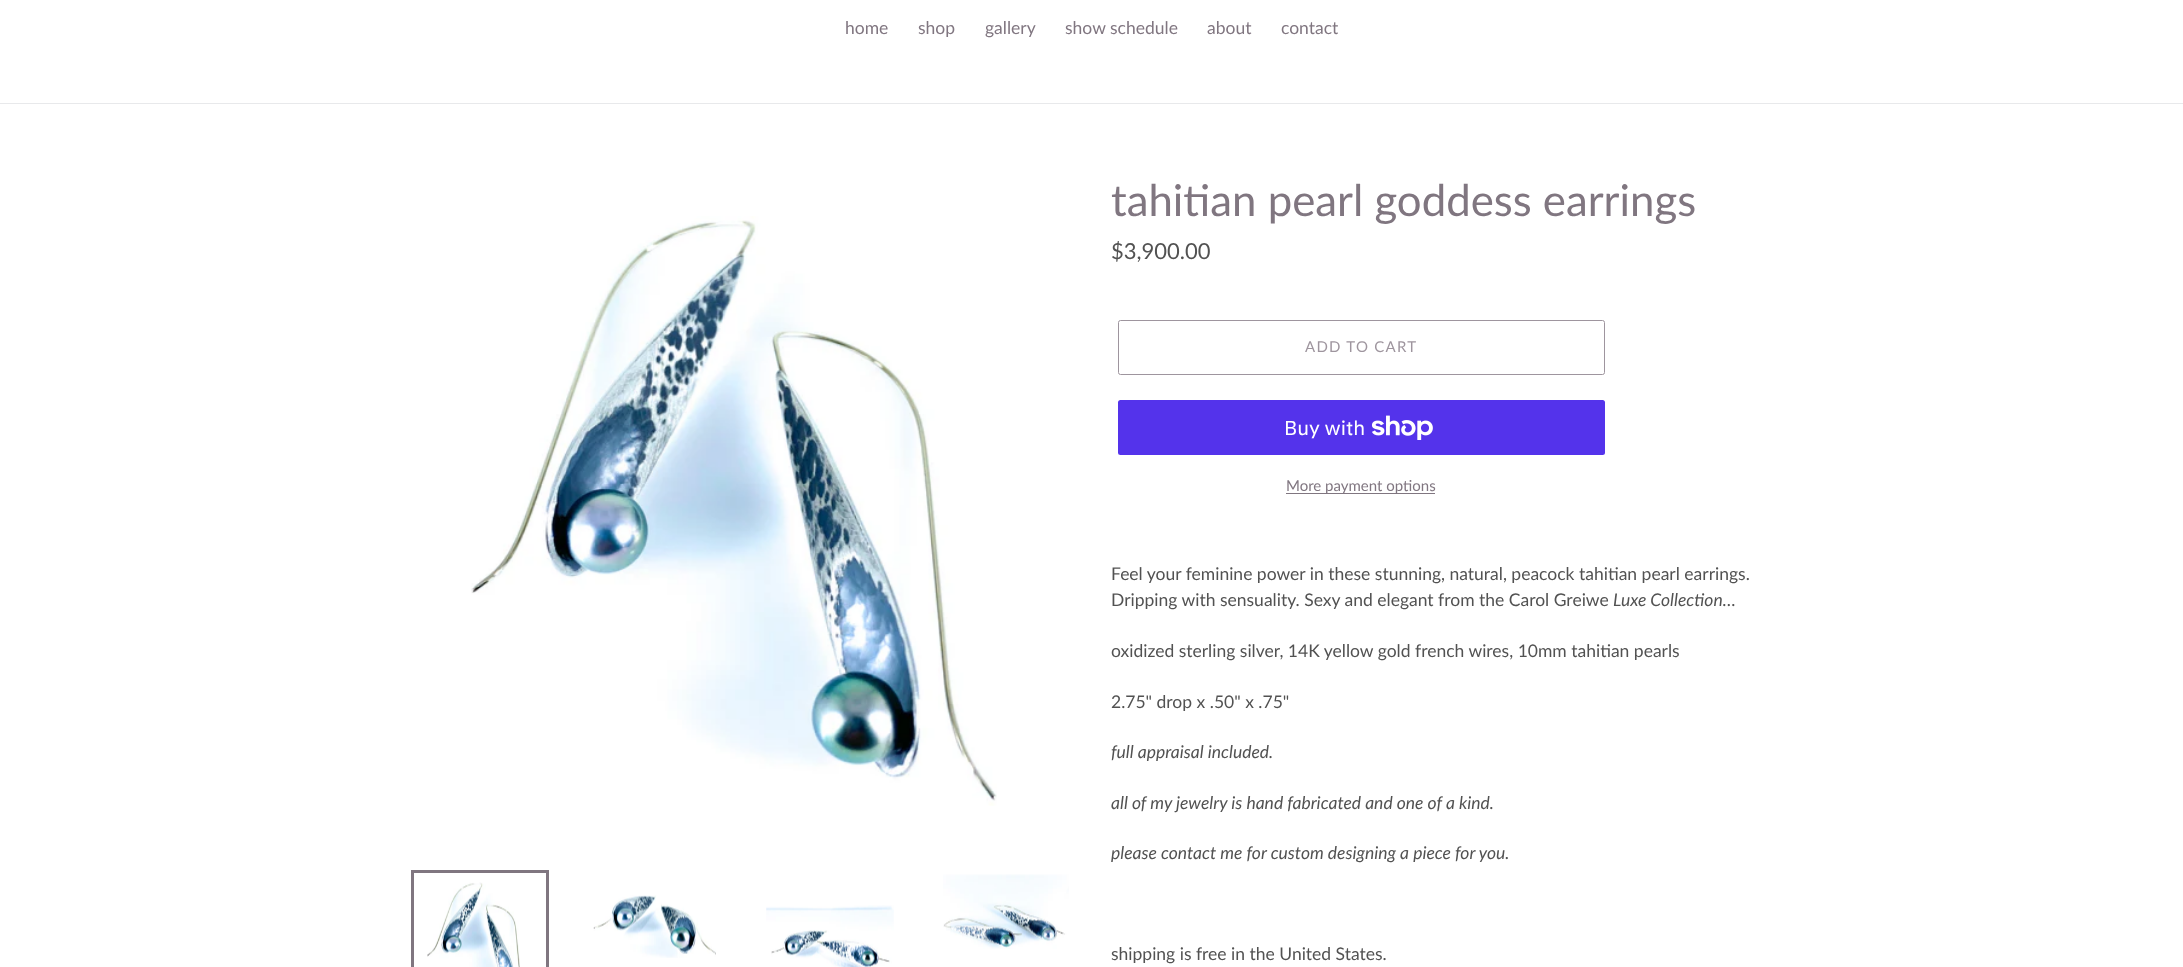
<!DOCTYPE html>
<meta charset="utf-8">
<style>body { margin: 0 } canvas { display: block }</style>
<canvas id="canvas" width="2183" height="967"></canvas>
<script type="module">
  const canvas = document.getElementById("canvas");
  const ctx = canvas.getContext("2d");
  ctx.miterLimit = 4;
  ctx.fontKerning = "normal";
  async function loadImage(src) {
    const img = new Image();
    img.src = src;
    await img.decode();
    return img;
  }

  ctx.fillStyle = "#ffffff";
  ctx.fillRect(0, 0, 2183, 967);
  ctx.fillStyle = "#e8e9eb";
  ctx.fillRect(0, 103, 2183, 1);
  ctx.font = "17.5px Lato";
  ctx.fillStyle = "#807680";
  ctx.fillText("home", 845, 34);
  ctx.fillText("shop", 918, 34);
  ctx.fillText("gallery", 985, 34);
  ctx.fillText("show schedule", 1065, 34);
  ctx.fillText("about", 1207, 34);
  ctx.fillText("contact", 1281, 34);
  ctx.drawImage(await loadImage("img1.png"), 471, 216, 526, 590);
  ctx.strokeStyle = "#807680";
  ctx.lineWidth = 3;
  ctx.strokeRect(412.5, 871.5, 135, 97);
  ctx.drawImage(await loadImage("img2.png"), 427, 882, 93, 85);
  ctx.drawImage(await loadImage("img3.png"), 593, 895, 123, 63);
  ctx.drawImage(await loadImage("img4.png"), 766, 905, 128, 62);
  ctx.drawImage(await loadImage("img5.png"), 943, 874, 126, 75);
  ctx.font = "43.75px Lato";
  ctx.fillText("tahitian pearl goddess earrings", 1111, 216);
  ctx.font = "22px Lato";
  ctx.fillStyle = "#525252";
  ctx.fillText("$3,900.00", 1111, 259);
  ctx.beginPath();
  ctx.roundRect(1118.5, 320.5, 486, 54, 2);
  ctx.strokeStyle = "#9e959e";
  ctx.lineWidth = 1;
  ctx.stroke();
  ctx.letterSpacing = "1.25px";
  ctx.font = "15px Lato";
  ctx.fillStyle = "#9e959e";
  ctx.fillText("ADD TO CART", 1305, 352);
  ctx.fillStyle = "#5433eb";
  ctx.beginPath();
  ctx.roundRect(1118, 400, 487, 55, 2.5);
  ctx.fill();
  ctx.letterSpacing = "0px";
  ctx.font = "20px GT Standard";
  ctx.fillStyle = "#ffffff";
  ctx.fillText("Buy with", 1284, 435);
  ctx.drawImage(await loadImage("img6.png"), 1371, 415, 62, 25);
  ctx.fillStyle = "#807680";
  ctx.fillRect(1286, 493, 149, 1);
  ctx.font = "15px Lato";
  ctx.fillText("More payment options", 1286, 491);
  ctx.font = "17.5px Lato";
  ctx.fillStyle = "#525252";
  ctx.fillText("Feel your feminine power in these stunning, natural, peacock tahitian pearl earrings.", 1111, 580);
  ctx.fillText("Dripping with sensuality. Sexy and elegant from the Carol Greiwe", 1111, 606);
  ctx.font = "italic 17.5px Lato";
  ctx.fillText("Luxe Collection…", 1613, 606);
  ctx.font = "17.5px Lato";
  ctx.fillText("oxidized sterling silver, 14K yellow gold french wires, 10mm tahitian pearls", 1111, 657);
  ctx.fillText("2.75\" drop x .50\" x .75\"", 1111, 708);
  ctx.font = "italic 17.5px Lato";
  ctx.fillText("full appraisal included.", 1111, 758);
  ctx.fillText("all of my jewelry is hand fabricated and one of a kind.", 1111, 809);
  ctx.fillText("please contact me for custom designing a piece for you.", 1111, 859);
  ctx.font = "17.5px Lato";
  ctx.fillText("shipping is free in the United States.", 1111, 960);
</script>
